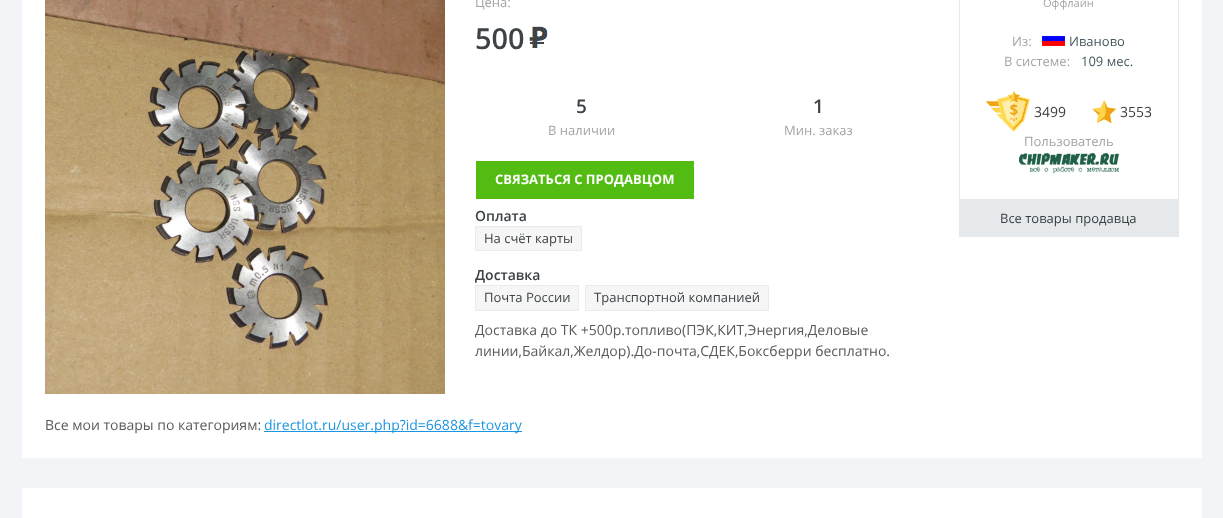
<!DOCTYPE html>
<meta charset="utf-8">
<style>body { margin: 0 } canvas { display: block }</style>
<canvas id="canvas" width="1223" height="518"></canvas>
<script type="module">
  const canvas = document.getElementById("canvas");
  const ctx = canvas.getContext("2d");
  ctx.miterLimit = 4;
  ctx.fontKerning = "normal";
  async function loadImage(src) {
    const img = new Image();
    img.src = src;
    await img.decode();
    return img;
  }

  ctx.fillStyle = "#f2f4f7";
  ctx.fillRect(0, 0, 1223, 518);
  ctx.fillStyle = "#ffffff";
  ctx.fillRect(22, 0, 1180, 458);
  ctx.drawImage(await loadImage("img1.png"), 45, 0, 400, 394);
  ctx.font = "13px Open Sans";
  ctx.fillStyle = "#a4a4a4";
  ctx.fillText("Цена:", 475, 7);
  ctx.font = "600 29px Open Sans";
  ctx.fillStyle = "#3d4347";
  ctx.fillText("500", 475, 49);
  ctx.drawImage(await loadImage("img2.png"), 529, 26, 19, 22);
  ctx.font = "600 19px Open Sans";
  ctx.fillText("5", 576, 113);
  ctx.font = "13px Open Sans";
  ctx.fillStyle = "#a4a4a4";
  ctx.fillText("В наличии", 548, 135);
  ctx.font = "600 19px Open Sans";
  ctx.fillStyle = "#3d4347";
  ctx.fillText("1", 813, 113);
  ctx.font = "13px Open Sans";
  ctx.fillStyle = "#a4a4a4";
  ctx.fillText("Мин. заказ", 784, 135);
  ctx.fillStyle = "#53bc12";
  ctx.fillRect(476, 161, 218, 38);
  ctx.font = "bold 13px Open Sans";
  ctx.fillStyle = "#ffffff";
  ctx.fillText("СВЯЗАТЬСЯ С ПРОДАВЦОМ", 495, 184);
  ctx.font = "600 14px Open Sans";
  ctx.fillStyle = "#3d4347";
  ctx.fillText("Оплата", 475, 221);
  ctx.fillStyle = "#f6f6f6";
  ctx.beginPath();
  ctx.rect(475.5, 226.5, 106, 24);
  ctx.fill();
  ctx.strokeStyle = "#eaeaea";
  ctx.stroke();
  ctx.font = "13px Open Sans";
  ctx.fillStyle = "#3d4347";
  ctx.fillText("На счёт карты", 484, 243);
  ctx.font = "600 14px Open Sans";
  ctx.fillText("Доставка", 475, 280);
  ctx.fillStyle = "#f6f6f6";
  ctx.beginPath();
  ctx.rect(475.5, 285.5, 103, 25);
  ctx.fill();
  ctx.stroke();
  ctx.font = "13px Open Sans";
  ctx.fillStyle = "#3d4347";
  ctx.fillText("Почта России", 484, 302);
  ctx.fillStyle = "#f6f6f6";
  ctx.beginPath();
  ctx.rect(585.5, 285.5, 183, 25);
  ctx.fill();
  ctx.stroke();
  ctx.fillStyle = "#3d4347";
  ctx.fillText("Транспортной компанией", 594, 302);
  ctx.font = "14px Open Sans";
  ctx.fillStyle = "#5a5a5a";
  ctx.fillText("Доставка до ТК +500р.топливо(ПЭК,КИТ,Энергия,Деловые", 475, 335);
  ctx.fillText("линии,Байкал,Желдор).До-почта,СДЕК,Боксберри бесплатно.", 475, 356);
  ctx.strokeStyle = "#e6e9ec";
  ctx.strokeRect(959.5, -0.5, 219, 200);
  ctx.font = "11px Open Sans";
  ctx.fillStyle = "#a4a4a4";
  ctx.fillText("Оффлайн", 1043, 7);
  ctx.font = "13px Open Sans";
  ctx.fillText("Из:", 1012, 46);
  ctx.drawImage(await loadImage("img3.png"), 1042, 35, 23, 11);
  ctx.fillStyle = "#46575f";
  ctx.fillText("Иваново", 1069, 46);
  ctx.fillStyle = "#a4a4a4";
  ctx.fillText("В системе:", 1004, 66);
  ctx.fillStyle = "#46575f";
  ctx.fillText("109 мес.", 1081, 66);
  ctx.drawImage(await loadImage("img4.png"), 985, 91, 45, 41);
  ctx.font = "14px Open Sans";
  ctx.fillStyle = "#393e41";
  ctx.fillText("3499", 1034, 117);
  ctx.drawImage(await loadImage("img5.png"), 1092, 100, 24, 23);
  ctx.fillText("3553", 1120, 117);
  ctx.font = "13px Open Sans";
  ctx.fillStyle = "#a4a4a4";
  ctx.fillText("Пользователь", 1024, 146);
  ctx.drawImage(await loadImage("img6.png"), 1019, 153, 100, 21);
  ctx.fillStyle = "#e6e9ec";
  ctx.fillRect(959, 200, 220, 37);
  ctx.fillStyle = "#393e41";
  ctx.fillText("Все товары продавца", 1000, 223);
  ctx.font = "14px Open Sans";
  ctx.fillStyle = "#5a5a5a";
  ctx.fillText("Все мои товары по категориям:", 45, 430);
  ctx.fillStyle = "#1e96df";
  ctx.fillRect(264, 431, 258, 1);
  ctx.fillText("directlot.ru/user.php?id=6688&f=tovary", 264, 430);
  ctx.fillStyle = "#ffffff";
  ctx.fillRect(22, 488, 1180, 30);
</script>
